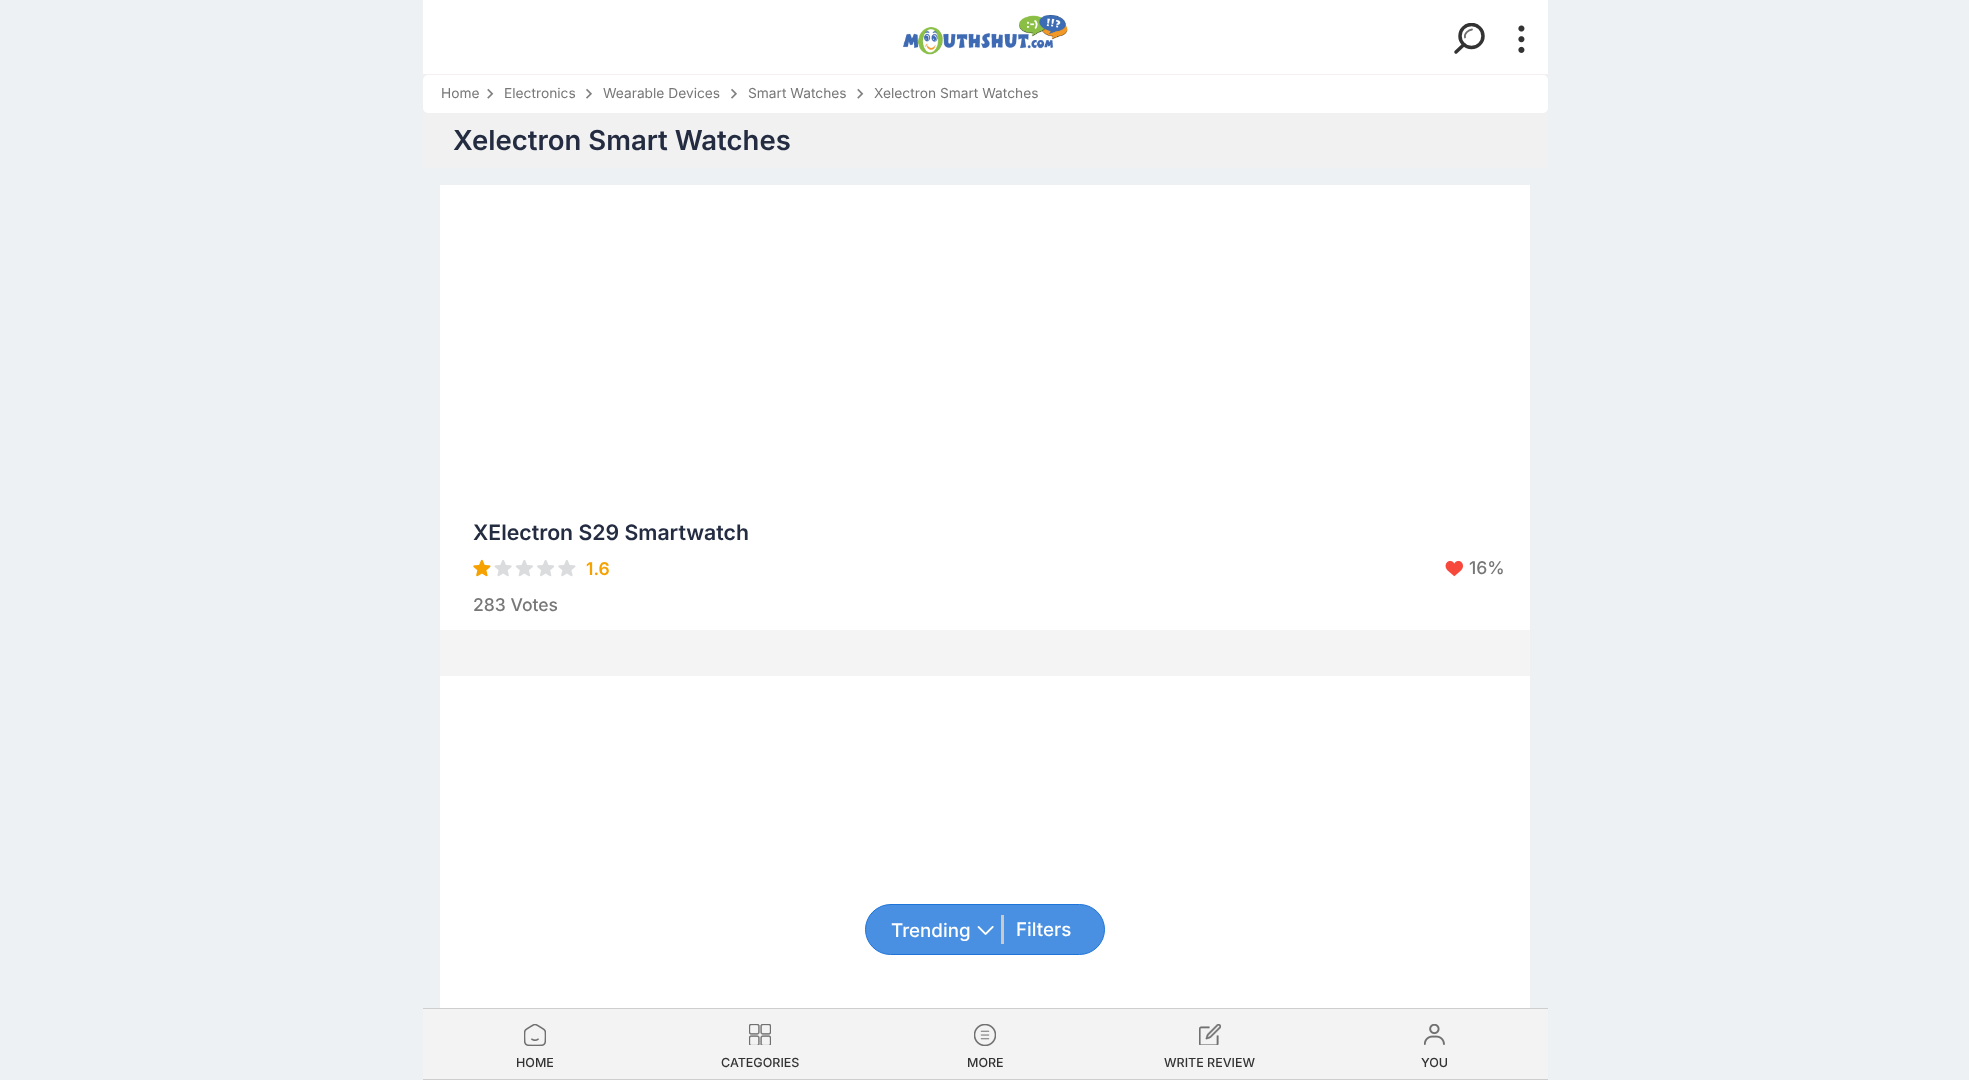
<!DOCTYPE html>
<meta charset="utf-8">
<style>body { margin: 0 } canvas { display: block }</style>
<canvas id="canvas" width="1969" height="1080"></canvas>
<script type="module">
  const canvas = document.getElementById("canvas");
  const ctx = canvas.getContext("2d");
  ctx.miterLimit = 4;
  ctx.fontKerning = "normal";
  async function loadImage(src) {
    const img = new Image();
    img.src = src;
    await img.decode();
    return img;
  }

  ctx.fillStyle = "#edf1f4";
  ctx.fillRect(0, 0, 1969, 1080);
  ctx.fillStyle = "#ffffff";
  ctx.fillRect(423, 0, 1125, 74);
  ctx.fillStyle = "#f6efef";
  ctx.fillRect(423, 74, 1125, 1);
  ctx.drawImage(await loadImage("img1.png"), 903, 15, 165, 40);
  ctx.save();
  ctx.beginPath();
  ctx.rect(1454, 23, 31, 31);
  ctx.clip();
  ctx.beginPath();
  ctx.arc(1471.5, 36, 11.5, 0, Math.PI * 2);
  ctx.strokeStyle = "#333333";
  ctx.lineWidth = 3.5;
  ctx.stroke();
  ctx.restore();
  ctx.drawImage(await loadImage("img2.png"), 1518, 25, 7, 28);
  ctx.beginPath();
  ctx.moveTo(1472, 29.5);
  ctx.bezierCurveTo(1468.5, 30, 1464, 33.5, 1465, 37.5);
  ctx.strokeStyle = "#707070";
  ctx.lineWidth = 1.8;
  ctx.lineCap = "round";
  ctx.stroke();
  ctx.beginPath();
  ctx.moveTo(1456, 52);
  ctx.lineTo(1464, 44.5);
  ctx.strokeStyle = "#333333";
  ctx.lineWidth = 3.5;
  ctx.lineJoin = "round";
  ctx.stroke();
  ctx.fillStyle = "#ffffff";
  ctx.beginPath();
  ctx.roundRect(423, 75, 1125, 38, 5);
  ctx.fill();
  ctx.font = "13.75px Inter";
  ctx.fillStyle = "#777777";
  ctx.fillText("Home", 441, 98);
  ctx.drawImage(await loadImage("img3.png"), 487, 88, 7, 11);
  ctx.fillText("Electronics", 504, 98);
  ctx.drawImage(await loadImage("img4.png"), 586, 88, 6, 11);
  ctx.fillText("Wearable Devices", 603, 98);
  ctx.drawImage(await loadImage("img4.png"), 731, 88, 6, 11);
  ctx.fillText("Smart Watches", 748, 98);
  ctx.drawImage(await loadImage("img3.png"), 857, 88, 7, 11);
  ctx.fillText("Xelectron Smart Watches", 874, 98);
  ctx.fillStyle = "#f1f1f1";
  ctx.fillRect(423, 113, 1125, 55);
  ctx.font = "600 27.5px Inter";
  ctx.fillStyle = "#242c42";
  ctx.fillText("Xelectron Smart Watches", 453, 150);
  ctx.fillStyle = "#ffffff";
  ctx.fillRect(440, 185, 1090, 445);
  ctx.font = "600 21.25px Inter";
  ctx.fillStyle = "#242c42";
  ctx.fillText("XElectron S29 Smartwatch", 473, 540);
  ctx.drawImage(await loadImage("img5.png"), 473, 559, 18, 18);
  ctx.drawImage(await loadImage("img6.png"), 494, 560, 18, 17);
  ctx.drawImage(await loadImage("img7.png"), 515, 560, 18, 17);
  ctx.drawImage(await loadImage("img8.png"), 537, 560, 18, 17);
  ctx.drawImage(await loadImage("img9.png"), 558, 560, 18, 17);
  ctx.font = "600 17.5px Inter";
  ctx.fillStyle = "#f5a100";
  ctx.fillText("1.6", 586, 575);
  ctx.drawImage(await loadImage("img10.png"), 1445, 560, 18, 17);
  ctx.font = "500 17.5px Inter";
  ctx.fillStyle = "#777777";
  ctx.fillText("16%", 1469, 574);
  ctx.fillText("283 Votes", 473, 611);
  ctx.fillStyle = "#f4f4f4";
  ctx.fillRect(440, 630, 1090, 46);
  ctx.fillStyle = "#ffffff";
  ctx.fillRect(440, 676, 1090, 332);
  ctx.fillStyle = "#4a90e2";
  ctx.beginPath();
  ctx.roundRect(865.5, 904.5, 239, 50, 25);
  ctx.fill();
  ctx.strokeStyle = "#1e74d8";
  ctx.lineWidth = 1;
  ctx.lineJoin = "miter";
  ctx.stroke();
  ctx.fillStyle = "#cacaca";
  ctx.fillRect(1001, 915, 3, 29);
  ctx.font = "500 18.75px Inter";
  ctx.fillStyle = "#ffffff";
  ctx.fillText("Trending", 891, 937);
  ctx.drawImage(await loadImage("img11.png"), 977, 926, 17, 9);
  ctx.fillText("Filters", 1016, 936);
  ctx.fillStyle = "#f3f3f3";
  ctx.fillRect(423, 1009, 1125, 70);
  ctx.fillStyle = "#cecece";
  ctx.fillRect(423, 1008, 1125, 1);
  ctx.fillRect(423, 1079, 1125, 1);
  ctx.drawImage(await loadImage("img12.png"), 524, 1024, 22, 22);
  ctx.font = "500 12.5px Inter";
  ctx.fillStyle = "#333333";
  ctx.fillText("HOME", 516, 1067);
  ctx.drawImage(await loadImage("img13.png"), 749, 1024, 22, 21);
  ctx.fillText("CATEGORIES", 721, 1067);
  ctx.drawImage(await loadImage("img14.png"), 974, 1024, 22, 22);
  ctx.fillText("MORE", 967, 1067);
  ctx.drawImage(await loadImage("img15.png"), 1199, 1024, 22, 21);
  ctx.fillText("WRITE REVIEW", 1164, 1067);
  ctx.drawImage(await loadImage("img16.png"), 1424, 1024, 21, 21);
  ctx.fillText("YOU", 1421, 1067);
</script>
